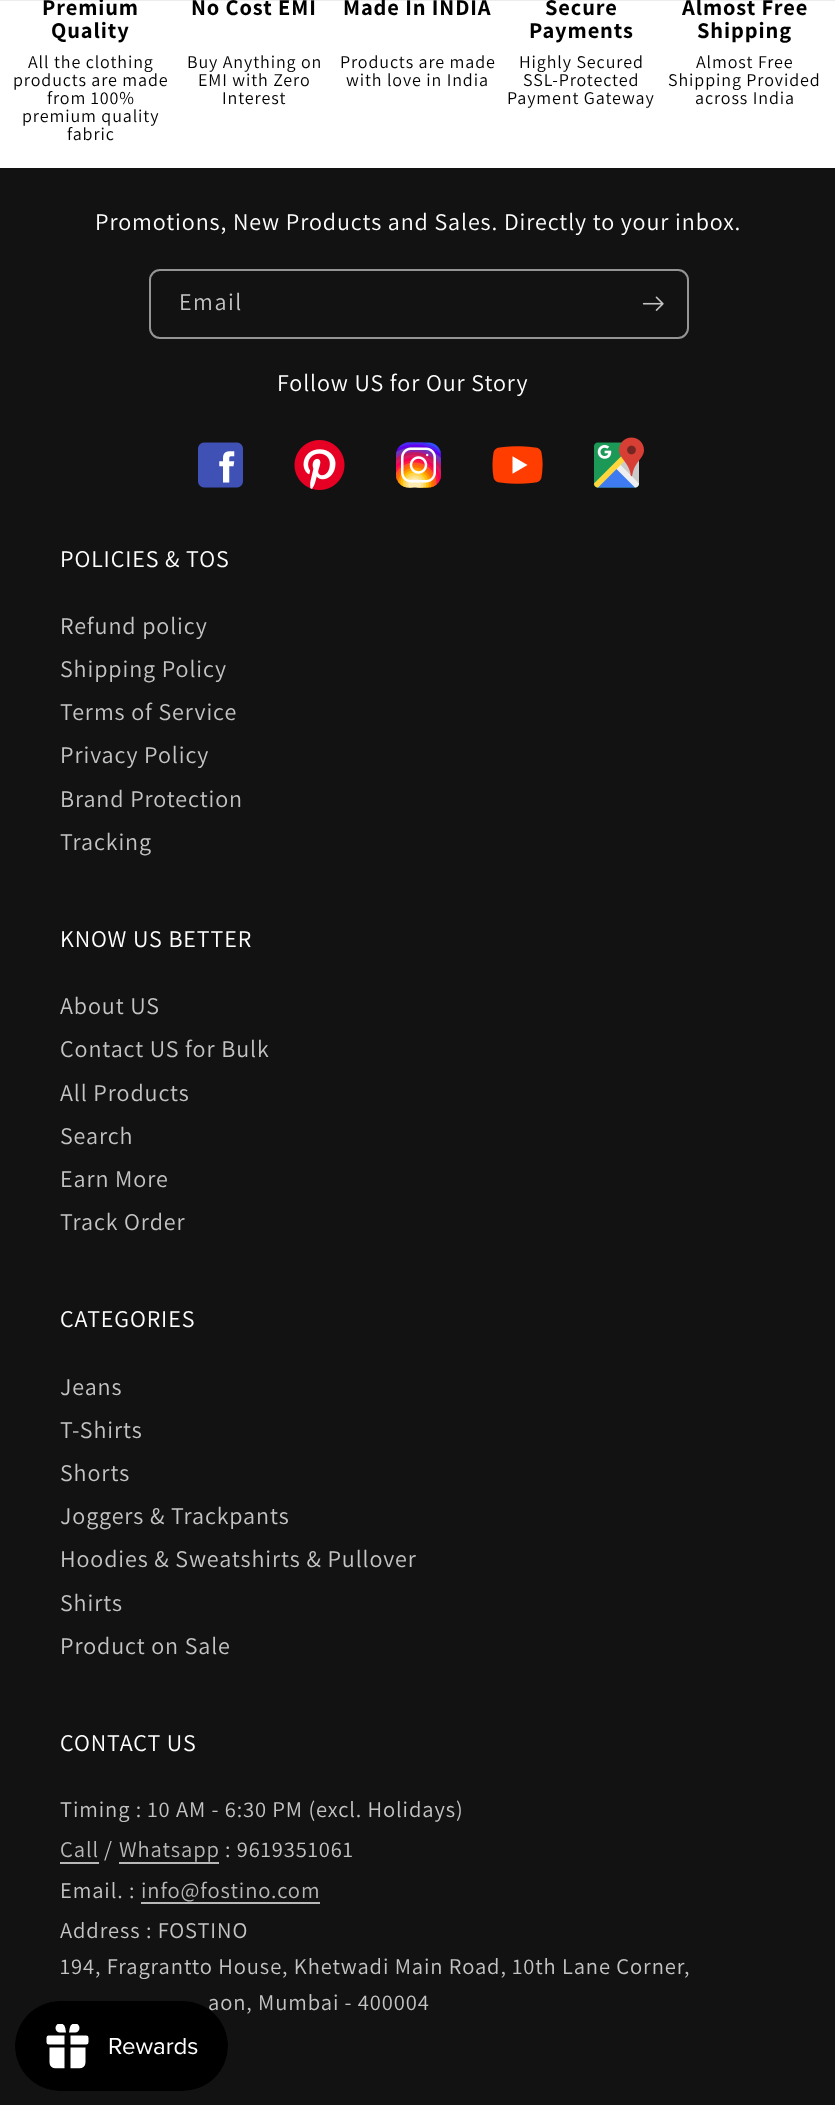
<!DOCTYPE html>
<meta charset="utf-8">
<style>body { margin: 0 } canvas { display: block }</style>
<canvas id="canvas" width="835" height="2105"></canvas>
<script type="module">
  const canvas = document.getElementById("canvas");
  const ctx = canvas.getContext("2d");
  ctx.miterLimit = 4;
  ctx.fontKerning = "normal";
  async function loadImage(src) {
    const img = new Image();
    img.src = src;
    await img.decode();
    return img;
  }

  ctx.fillStyle = "#ffffff";
  ctx.fillRect(0, 0, 835, 2105);
  ctx.fillStyle = "rgba(18, 18, 18, 0.08)";
  ctx.fillRect(0, 0, 835, 1);
  ctx.letterSpacing = "0.9px";
  ctx.font = "bold 22.5px Assistant";
  ctx.fillStyle = "#000000";
  ctx.fillText("Premium", 42, 15);
  ctx.fillText("Quality", 51, 38);
  ctx.fillText("No Cost EMI", 191, 15);
  ctx.fillText("Made In INDIA", 343, 15);
  ctx.fillText("Secure", 545, 15);
  ctx.fillText("Payments", 529, 38);
  ctx.fillText("Almost Free", 682, 15);
  ctx.fillText("Shipping", 697, 38);
  ctx.font = "18px Assistant";
  ctx.fillText("All the clothing", 28, 68);
  ctx.fillText("products are made", 13, 86);
  ctx.fillText("from 100%", 47, 104);
  ctx.fillText("premium quality", 22, 122);
  ctx.fillText("fabric", 67, 140);
  ctx.fillText("Buy Anything on", 187, 68);
  ctx.fillText("EMI with Zero", 198, 86);
  ctx.fillText("Interest", 222, 104);
  ctx.fillText("Products are made", 340, 68);
  ctx.fillText("with love in India", 346, 86);
  ctx.fillText("Highly Secured", 519, 68);
  ctx.fillText("SSL-Protected", 523, 86);
  ctx.fillText("Payment Gateway", 507, 104);
  ctx.fillText("Almost Free", 696, 68);
  ctx.fillText("Shipping Provided", 668, 86);
  ctx.fillText("across India", 695, 104);
  ctx.fillStyle = "#121212";
  ctx.fillRect(0, 168, 835, 1937);
  ctx.font = "24px Assistant";
  ctx.fillStyle = "#ffffff";
  ctx.fillText("Promotions, New Products and Sales. Directly to your inbox.", 95, 230);
  ctx.beginPath();
  ctx.roundRect(150, 270, 538, 68, 10);
  ctx.strokeStyle = "#949494";
  ctx.lineWidth = 2;
  ctx.stroke();
  ctx.letterSpacing = "1.5px";
  ctx.fillStyle = "#c4c4c4";
  ctx.fillText("Email", 179, 310);
  ctx.drawImage(await loadImage("img1.png"), 642, 296, 22, 15);
  ctx.letterSpacing = "0.9px";
  ctx.fillStyle = "#ffffff";
  ctx.fillText("Follow US for Our Story", 277, 391);
  ctx.drawImage(await loadImage("img2.png"), 198, 442, 45, 46);
  ctx.drawImage(await loadImage("img3.png"), 294, 440, 51, 50);
  ctx.drawImage(await loadImage("img4.png"), 396, 442, 45, 46);
  ctx.drawImage(await loadImage("img5.png"), 492, 446, 51, 38);
  ctx.drawImage(await loadImage("img6.png"), 594, 437, 50, 51);
  ctx.fillText("POLICIES & TOS", 60, 567);
  ctx.fillStyle = "#c4c4c4";
  ctx.fillText("Refund policy", 60, 634);
  ctx.fillText("Shipping Policy", 60, 677);
  ctx.fillText("Terms of Service", 60, 720);
  ctx.fillText("Privacy Policy", 60, 763);
  ctx.fillText("Brand Protection", 60, 807);
  ctx.fillText("Tracking", 60, 850);
  ctx.fillStyle = "#ffffff";
  ctx.fillText("KNOW US BETTER", 60, 947);
  ctx.fillStyle = "#c4c4c4";
  ctx.fillText("About US", 60, 1014);
  ctx.fillText("Contact US for Bulk", 60, 1057);
  ctx.fillText("All Products", 60, 1101);
  ctx.fillText("Search", 60, 1144);
  ctx.fillText("Earn More", 60, 1187);
  ctx.fillText("Track Order", 60, 1230);
  ctx.fillStyle = "#ffffff";
  ctx.fillText("CATEGORIES", 60, 1327);
  ctx.fillStyle = "#c4c4c4";
  ctx.fillText("Jeans", 60, 1395);
  ctx.fillText("T-Shirts", 60, 1438);
  ctx.fillText("Shorts", 60, 1481);
  ctx.fillText("Joggers & Trackpants", 60, 1524);
  ctx.fillText("Hoodies & Sweatshirts & Pullover", 60, 1567);
  ctx.fillText("Shirts", 60, 1611);
  ctx.fillText("Product on Sale", 60, 1654);
  ctx.fillStyle = "#ffffff";
  ctx.fillText("CONTACT US", 60, 1751);
  ctx.font = "22.5px Assistant";
  ctx.fillStyle = "#c4c4c4";
  ctx.fillText("Timing : 10 AM - 6:30 PM (excl. Holidays)", 60, 1817);
  ctx.fillStyle = "#b8b8b8";
  ctx.fillText("Call", 60, 1857);
  ctx.fillRect(60, 1862, 39, 2);
  ctx.fillStyle = "#c4c4c4";
  ctx.fillText("/", 104, 1857);
  ctx.fillStyle = "#b8b8b8";
  ctx.fillText("Whatsapp", 119, 1857);
  ctx.fillRect(119, 1862, 100, 2);
  ctx.fillStyle = "#c4c4c4";
  ctx.fillText(": 9619351061", 225, 1857);
  ctx.fillText("Email. :", 60, 1898);
  ctx.fillStyle = "#b8b8b8";
  ctx.fillText("info@fostino.com", 141, 1898);
  ctx.fillRect(141, 1902, 179, 2);
  ctx.fillStyle = "#c4c4c4";
  ctx.fillText("Address : FOSTINO", 60, 1938);
  ctx.fillText("194, Fragrantto House, Khetwadi Main Road, 10th Lane Corner,", 60, 1974);
  ctx.fillText("aon, Mumbai - 400004", 208, 2010);
  ctx.drawImage(await loadImage("img7.png"), 15, 2001, 213, 90);
</script>
